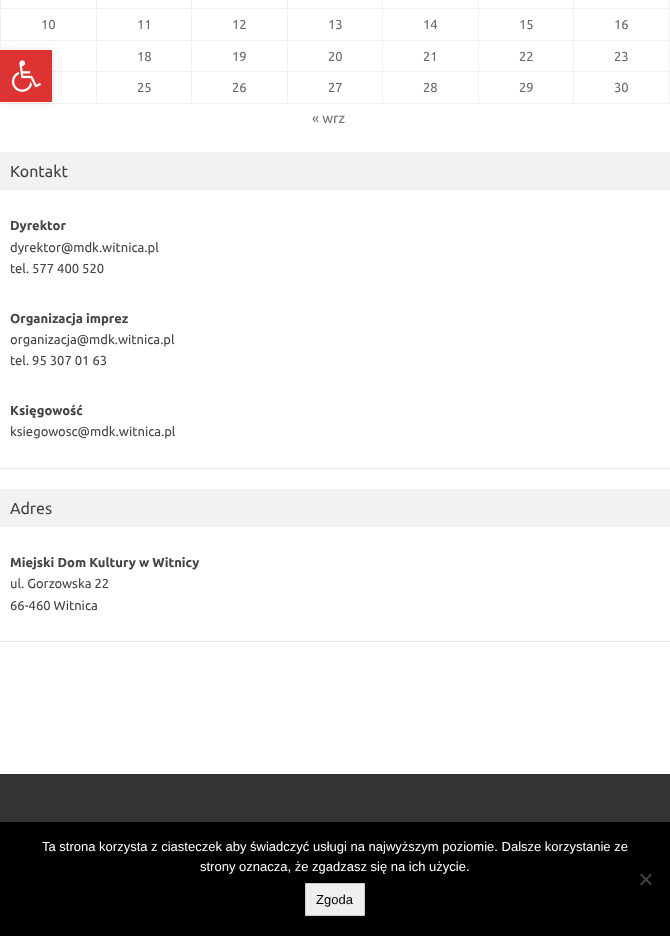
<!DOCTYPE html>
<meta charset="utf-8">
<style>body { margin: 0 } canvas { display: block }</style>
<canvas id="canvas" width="670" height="936"></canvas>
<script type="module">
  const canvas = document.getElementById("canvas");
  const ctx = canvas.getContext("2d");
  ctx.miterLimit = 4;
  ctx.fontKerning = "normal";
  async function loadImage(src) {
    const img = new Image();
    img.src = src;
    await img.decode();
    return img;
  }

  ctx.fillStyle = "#ffffff";
  ctx.fillRect(0, 0, 670, 936);
  ctx.fillStyle = "#f1f1f1";
  ctx.fillRect(0, 8, 670, 1);
  ctx.fillRect(0, 40, 670, 1);
  ctx.fillRect(52, 71, 618, 1);
  ctx.fillRect(669, 71, 1, 33);
  ctx.fillRect(669, 40, 1, 32);
  ctx.fillRect(669, 0, 1, 41);
  ctx.fillRect(0, 40, 1, 10);
  ctx.fillRect(0, 0, 1, 41);
  ctx.font = "13px Ubuntu";
  ctx.fillStyle = "#686868";
  ctx.fillText("10", 41, 29);
  ctx.fillText("11", 137, 29);
  ctx.fillText("12", 232, 29);
  ctx.fillText("13", 328, 29);
  ctx.fillText("14", 423, 29);
  ctx.fillText("15", 519, 29);
  ctx.fillText("16", 614, 29);
  ctx.fillText("18", 137, 61);
  ctx.fillText("19", 232, 61);
  ctx.fillText("20", 328, 61);
  ctx.fillText("21", 423, 61);
  ctx.fillText("22", 519, 61);
  ctx.fillText("23", 614, 61);
  ctx.fillStyle = "#f1f1f1";
  ctx.fillRect(0, 103, 670, 1);
  ctx.fillRect(0, 102, 1, 2);
  ctx.fillRect(96, 0, 1, 104);
  ctx.fillStyle = "#686868";
  ctx.fillText("25", 137, 92);
  ctx.fillStyle = "#f1f1f1";
  ctx.fillRect(191, 0, 1, 104);
  ctx.fillStyle = "#686868";
  ctx.fillText("26", 232, 92);
  ctx.fillStyle = "#f1f1f1";
  ctx.fillRect(287, 0, 1, 104);
  ctx.fillStyle = "#686868";
  ctx.fillText("27", 328, 92);
  ctx.fillStyle = "#f1f1f1";
  ctx.fillRect(382, 0, 1, 104);
  ctx.fillStyle = "#686868";
  ctx.fillText("28", 423, 92);
  ctx.fillStyle = "#f1f1f1";
  ctx.fillRect(478, 0, 1, 104);
  ctx.fillStyle = "#686868";
  ctx.fillText("29", 519, 92);
  ctx.fillStyle = "#f1f1f1";
  ctx.fillRect(573, 0, 1, 104);
  ctx.fillStyle = "#686868";
  ctx.fillText("30", 614, 92);
  ctx.font = "14px Ubuntu";
  ctx.fillStyle = "#757575";
  ctx.fillText("« wrz", 312, 123);
  ctx.fillStyle = "#f2f2f2";
  ctx.fillRect(0, 152, 670, 38);
  ctx.font = "16px Ubuntu";
  ctx.fillStyle = "#444444";
  ctx.fillText("Kontakt", 10, 177);
  ctx.fillStyle = "#e9e9e9";
  ctx.fillRect(0, 468, 670, 1);
  ctx.font = "bold 13px Ubuntu";
  ctx.fillStyle = "#444444";
  ctx.fillText("Dyrektor", 10, 230);
  ctx.font = "13px Ubuntu";
  ctx.fillText("dyrektor@mdk.witnica.pl", 10, 252);
  ctx.fillText("tel. 577 400 520", 10, 273);
  ctx.font = "bold 13px Ubuntu";
  ctx.fillText("Organizacja imprez", 10, 323);
  ctx.font = "13px Ubuntu";
  ctx.fillText("organizacja@mdk.witnica.pl", 10, 344);
  ctx.fillText("tel. 95 307 01 63", 10, 365);
  ctx.font = "bold 13px Ubuntu";
  ctx.fillText("Księgowość", 10, 415);
  ctx.font = "13px Ubuntu";
  ctx.fillText("ksiegowosc@mdk.witnica.pl", 10, 436);
  ctx.fillStyle = "#f2f2f2";
  ctx.fillRect(0, 489, 670, 38);
  ctx.font = "16px Ubuntu";
  ctx.fillStyle = "#444444";
  ctx.fillText("Adres", 10, 514);
  ctx.fillStyle = "#e9e9e9";
  ctx.fillRect(0, 641, 670, 1);
  ctx.font = "bold 13px Ubuntu";
  ctx.fillStyle = "#444444";
  ctx.fillText("Miejski Dom Kultury w Witnicy", 10, 567);
  ctx.font = "13px Ubuntu";
  ctx.fillText("ul. Gorzowska 22", 10, 588);
  ctx.fillText("66-460 Witnica", 10, 610);
  ctx.drawImage(await loadImage("img1.png"), 0, 774, 670, 48);
  ctx.fillStyle = "rgba(0, 0, 0, 0.1)";
  ctx.filter = "blur(5px)";
  ctx.beginPath();
  ctx.rect(0, 50, 52, 52);
  ctx.fill();
  ctx.filter = "none";
  ctx.fillStyle = "#dd3333";
  ctx.fillRect(0, 50, 52, 52);
  ctx.drawImage(await loadImage("img2.png"), 11, 60, 30, 32);
  ctx.fillStyle = "#000000";
  ctx.fillRect(0, 822, 670, 114);
  ctx.font = "13px Liberation Sans";
  ctx.fillStyle = "#ffffff";
  ctx.fillText("Ta strona korzysta z ciasteczek aby świadczyć usługi na najwyższym poziomie. Dalsze korzystanie ze", 42, 851);
  ctx.fillText("strony oznacza, że zgadzasz się na ich użycie.", 200, 871);
  ctx.fillStyle = "#404040";
  ctx.beginPath();
  ctx.moveTo(650.5, 873.5);
  ctx.lineTo(652, 875);
  ctx.lineTo(641.5, 885.5);
  ctx.lineTo(640, 884);
  ctx.closePath();
  ctx.fill();
  ctx.beginPath();
  ctx.moveTo(640, 875);
  ctx.lineTo(641.5, 873.5);
  ctx.lineTo(652, 884);
  ctx.lineTo(650.5, 885.5);
  ctx.closePath();
  ctx.fill();
  ctx.fillStyle = "#efefef";
  ctx.beginPath();
  ctx.rect(305.5, 883.5, 59, 32);
  ctx.fill();
  ctx.strokeStyle = "#cccccc";
  ctx.stroke();
  ctx.fillStyle = "#000000";
  ctx.fillText("Zgoda", 316, 904);
</script>
